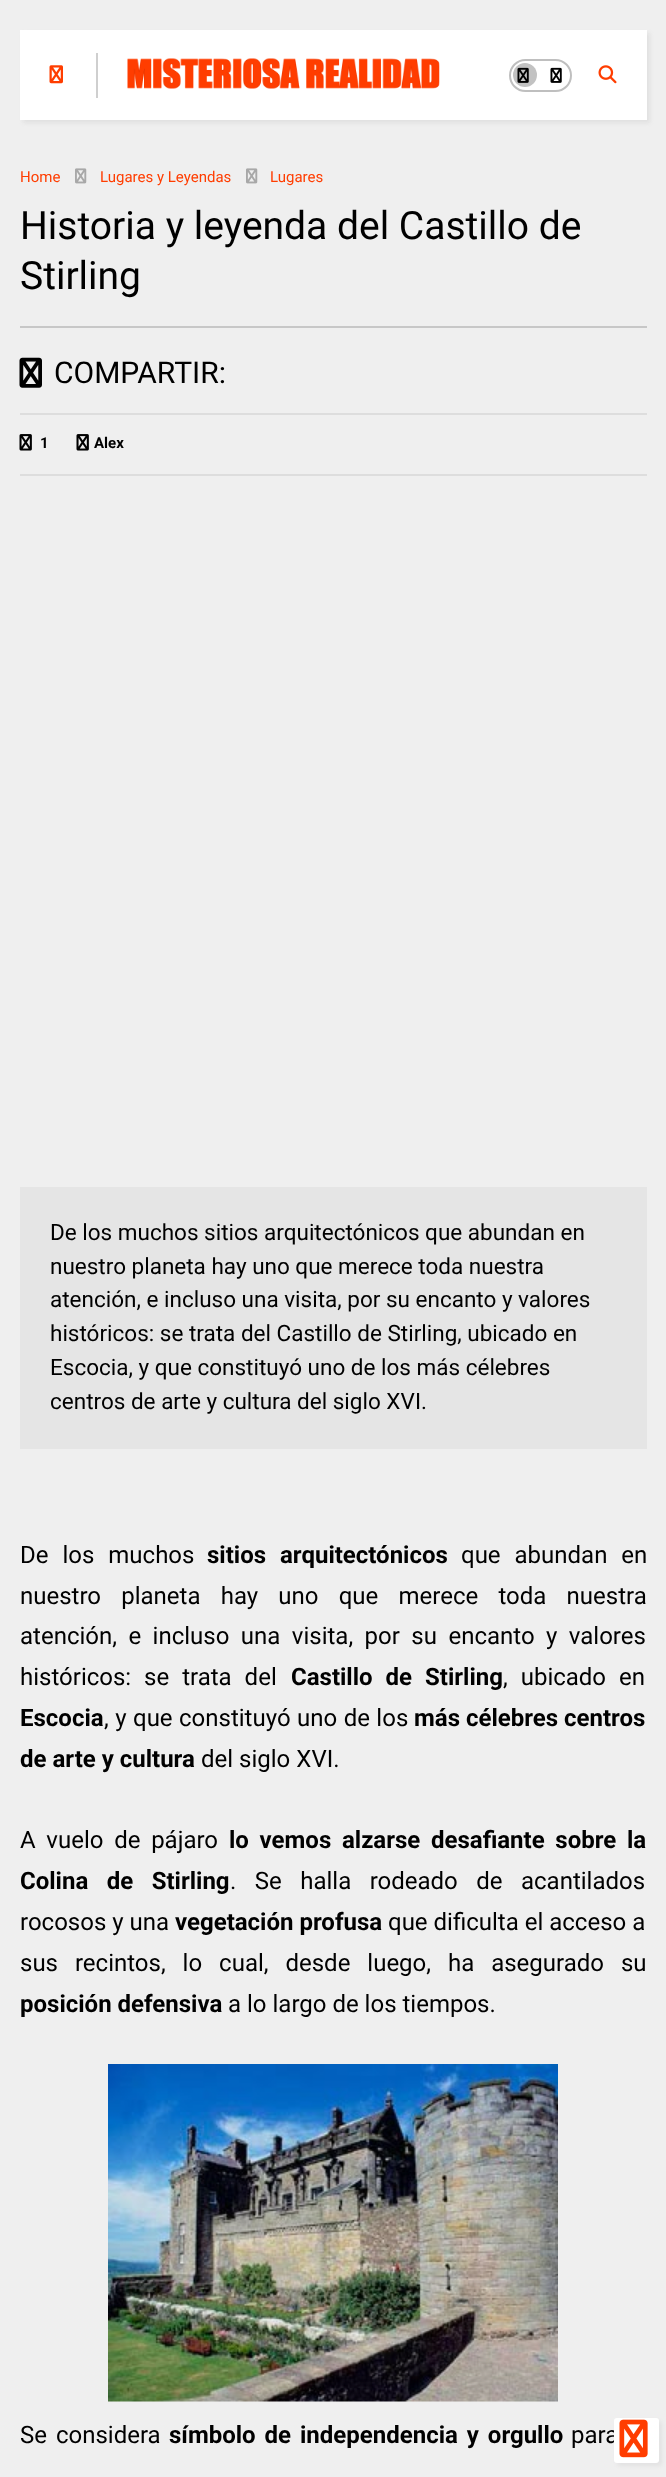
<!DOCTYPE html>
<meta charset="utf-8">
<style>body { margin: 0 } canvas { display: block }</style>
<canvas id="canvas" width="666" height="2477"></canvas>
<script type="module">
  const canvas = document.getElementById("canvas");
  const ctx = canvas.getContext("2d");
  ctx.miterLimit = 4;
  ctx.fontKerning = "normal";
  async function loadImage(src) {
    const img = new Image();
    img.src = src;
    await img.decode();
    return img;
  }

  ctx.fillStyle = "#efefef";
  ctx.fillRect(0, 0, 666, 2477);
  ctx.fillStyle = "rgba(120, 120, 120, 0.12)";
  ctx.filter = "blur(2px)";
  ctx.beginPath();
  ctx.rect(23, 33, 627, 90);
  ctx.fill();
  ctx.filter = "none";
  ctx.fillStyle = "#ffffff";
  ctx.fillRect(20, 30, 627, 90);
  ctx.drawImage(await loadImage("img1.png"), 49, 65, 14, 19);
  ctx.fillStyle = "#cfcfcf";
  ctx.fillRect(96, 53, 2, 45);
  ctx.drawImage(await loadImage("img2.png"), 127, 58, 313, 31);
  ctx.beginPath();
  ctx.roundRect(510, 60, 61, 31, 15.5);
  ctx.strokeStyle = "#bfbfbf";
  ctx.lineWidth = 2;
  ctx.stroke();
  ctx.fillStyle = "#c2c2c2";
  ctx.beginPath();
  ctx.arc(525, 75, 12, 0, Math.PI * 2);
  ctx.fill();
  ctx.drawImage(await loadImage("img3.png"), 517, 67, 12, 16);
  ctx.drawImage(await loadImage("img4.png"), 550, 67, 12, 16);
  ctx.drawImage(await loadImage("img5.png"), 598, 65, 19, 19);
  ctx.font = "15px Roboto";
  ctx.fillStyle = "#ff3d00";
  ctx.fillText("Home", 20, 182);
  ctx.drawImage(await loadImage("img6.png"), 75, 168, 12, 16);
  ctx.fillText("Lugares y Leyendas", 100, 182);
  ctx.drawImage(await loadImage("img6.png"), 246, 168, 12, 16);
  ctx.fillText("Lugares", 270, 182);
  ctx.font = "39px Roboto";
  ctx.fillStyle = "#000000";
  ctx.fillText("Historia y leyenda del Castillo de", 20, 239);
  ctx.fillText("Stirling", 20, 289);
  ctx.fillStyle = "#dddddd";
  ctx.fillRect(20, 413, 627, 2);
  ctx.fillStyle = "#c7c7c7";
  ctx.fillRect(20, 326, 627, 2);
  ctx.drawImage(await loadImage("img7.png"), 19, 357, 23, 31);
  ctx.font = "30px Roboto";
  ctx.fillStyle = "#000000";
  ctx.fillText("COMPARTIR:", 54, 383);
  ctx.fillStyle = "#dddddd";
  ctx.fillRect(20, 474, 627, 2);
  ctx.drawImage(await loadImage("img8.png"), 19, 434, 13, 17);
  ctx.font = "bold 15px Roboto";
  ctx.fillStyle = "#000000";
  ctx.fillText("1", 40, 448);
  ctx.drawImage(await loadImage("img8.png"), 76, 434, 13, 17);
  ctx.fillText("Alex", 94, 448);
  ctx.fillStyle = "#e5e5e5";
  ctx.fillRect(20, 1187, 627, 262);
  ctx.font = "22.5px Roboto";
  ctx.fillStyle = "#000000";
  ctx.fillText("De los muchos sitios arquitectónicos que abundan en", 50, 1240);
  ctx.fillText("nuestro planeta hay uno que merece toda nuestra", 50, 1274);
  ctx.fillText("atención, e incluso una visita, por su encanto y valores", 50, 1307);
  ctx.fillText("históricos: se trata del Castillo de Stirling, ubicado en", 50, 1341);
  ctx.fillText("Escocia, y que constituyó uno de los más célebres", 50, 1375);
  ctx.fillText("centros de arte y cultura del siglo XVI.", 50, 1409);
  ctx.wordSpacing = "8px";
  ctx.font = "24px Roboto";
  ctx.fillText("De los muchos", 20, 1563);
  ctx.font = "bold 24px Roboto";
  ctx.fillText("sitios arquitectónicos", 207, 1563);
  ctx.font = "24px Roboto";
  ctx.fillText("que abundan en", 461, 1563);
  ctx.wordSpacing = "14.25px";
  ctx.fillText("nuestro planeta hay uno que merece toda nuestra", 20, 1604);
  ctx.wordSpacing = "5.5px";
  ctx.fillText("atención, e incluso una visita, por su encanto y valores", 20, 1644);
  ctx.wordSpacing = "7px";
  ctx.fillText("históricos: se trata del", 20, 1685);
  ctx.font = "bold 24px Roboto";
  ctx.fillText("Castillo de Stirling", 291, 1685);
  ctx.font = "24px Roboto";
  ctx.fillText(", ubicado en", 503, 1685);
  ctx.wordSpacing = "0px";
  ctx.font = "bold 24px Roboto";
  ctx.fillText("Escocia", 20, 1726);
  ctx.wordSpacing = "0.5px";
  ctx.font = "24px Roboto";
  ctx.fillText(", y que constituyó uno de los", 104, 1726);
  ctx.wordSpacing = "0px";
  ctx.font = "bold 24px Roboto";
  ctx.fillText("más célebres centros", 414, 1726);
  ctx.fillText("de arte y cultura", 20, 1767);
  ctx.font = "24px Roboto";
  ctx.fillText("del siglo XVI.", 201, 1767);
  ctx.wordSpacing = "4.75px";
  ctx.fillText("A vuelo de pájaro", 20, 1848);
  ctx.font = "bold 24px Roboto";
  ctx.fillText("lo vemos alzarse desafiante sobre la", 229, 1848);
  ctx.wordSpacing = "12.5px";
  ctx.fillText("Colina de Stirling", 20, 1889);
  ctx.font = "24px Roboto";
  ctx.fillText(". Se halla rodeado de acantilados", 230, 1889);
  ctx.wordSpacing = "0px";
  ctx.fillText("rocosos y una", 20, 1930);
  ctx.font = "bold 24px Roboto";
  ctx.fillText("vegetación profusa", 175, 1930);
  ctx.font = "24px Roboto";
  ctx.fillText("que dificulta el acceso a", 388, 1930);
  ctx.wordSpacing = "11px";
  ctx.fillText("sus recintos, lo cual, desde luego, ha asegurado su", 20, 1971);
  ctx.wordSpacing = "0px";
  ctx.font = "bold 24px Roboto";
  ctx.fillText("posición defensiva", 20, 2012);
  ctx.font = "24px Roboto";
  ctx.fillText("a lo largo de los tiempos.", 228, 2012);
  ctx.drawImage(await loadImage("img9.png"), 108, 2064, 450, 338);
  ctx.wordSpacing = "3px";
  ctx.fillText("Se considera", 20, 2443);
  ctx.font = "bold 24px Roboto";
  ctx.fillText("símbolo de independencia y orgullo", 169, 2443);
  ctx.font = "24px Roboto";
  ctx.fillText("para", 571, 2443);
  ctx.fillStyle = "rgba(0, 0, 0, 0.05)";
  ctx.filter = "blur(2px)";
  ctx.beginPath();
  ctx.roundRect(617, 2421, 45, 45, 3);
  ctx.fill();
  ctx.filter = "none";
  ctx.fillStyle = "#ffffff";
  ctx.beginPath();
  ctx.roundRect(614, 2418, 45, 45, 3);
  ctx.fill();
  ctx.drawImage(await loadImage("img10.png"), 619, 2419, 29, 39);
</script>
